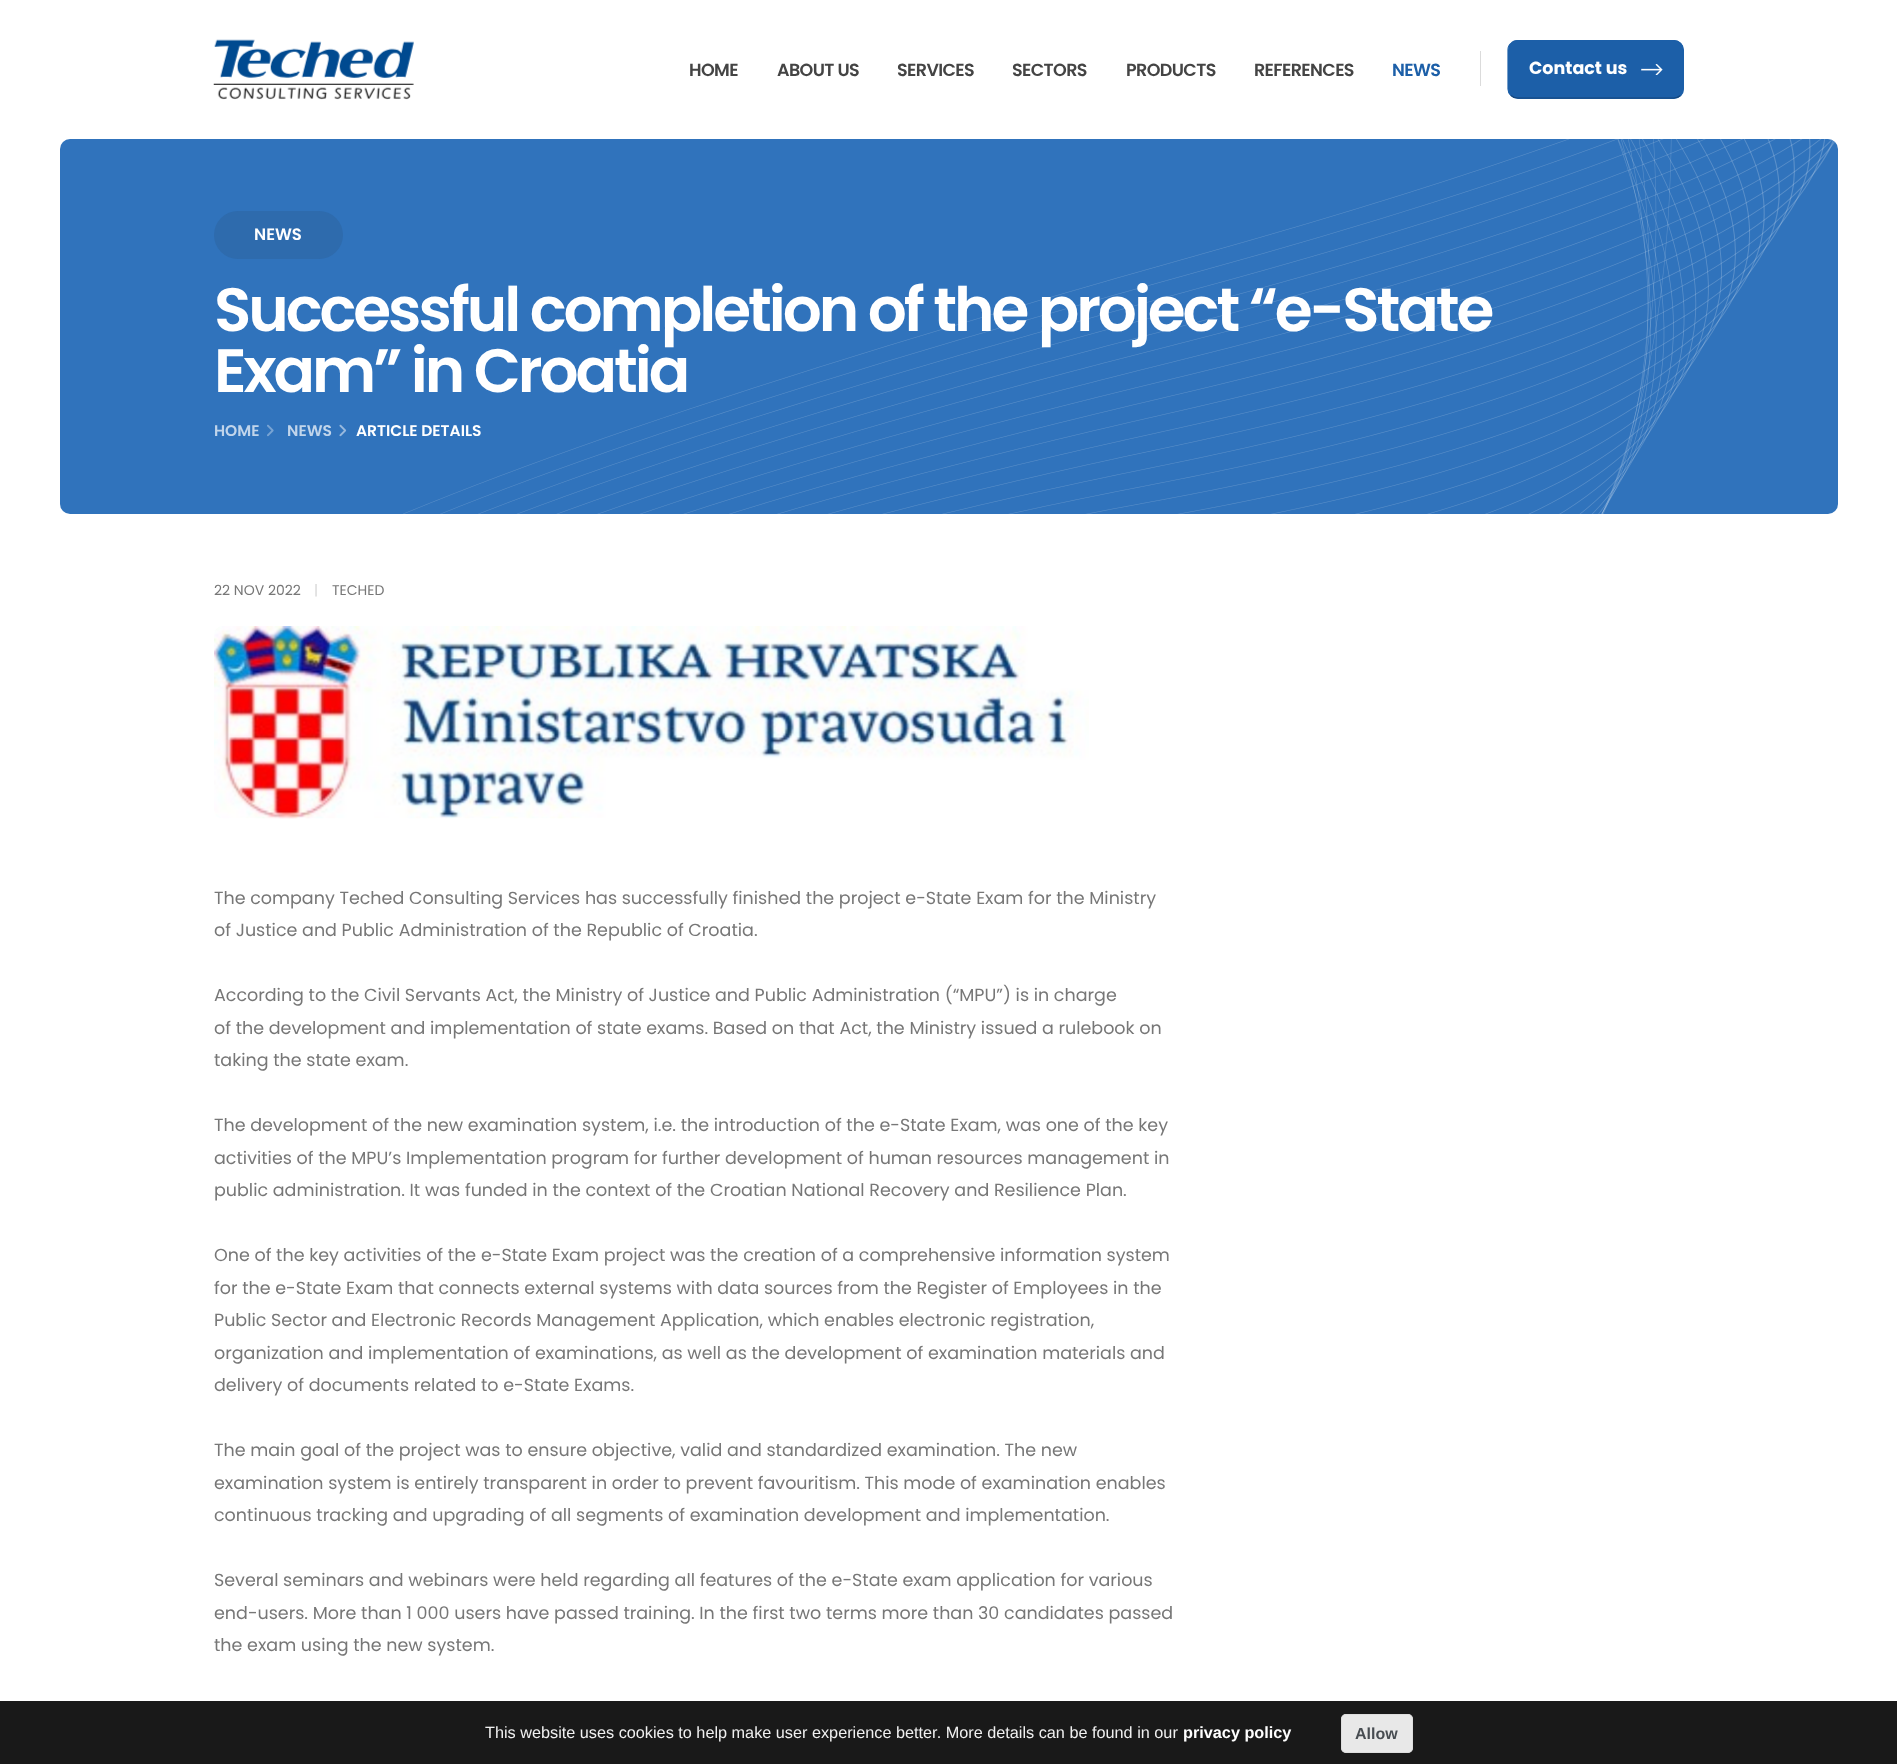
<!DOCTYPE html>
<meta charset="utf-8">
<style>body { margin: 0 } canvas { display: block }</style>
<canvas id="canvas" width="1897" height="1764"></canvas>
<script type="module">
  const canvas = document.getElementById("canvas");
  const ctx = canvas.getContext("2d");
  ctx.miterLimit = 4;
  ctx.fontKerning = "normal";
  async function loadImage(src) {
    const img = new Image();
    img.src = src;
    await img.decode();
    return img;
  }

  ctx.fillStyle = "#ffffff";
  ctx.fillRect(0, 0, 1897, 1764);
  ctx.fillStyle = "#191919";
  ctx.fillRect(0, 1701, 1897, 63);
  ctx.drawImage(await loadImage("img1.png"), 213, 39, 201, 61);
  ctx.letterSpacing = "-0.6px";
  ctx.font = "600 17.5px Poppins";
  ctx.fillStyle = "#444444";
  ctx.fillText("HOME", 689, 76);
  ctx.fillText("ABOUT US", 777, 76);
  ctx.fillText("SERVICES", 897, 76);
  ctx.fillText("SECTORS", 1012, 76);
  ctx.fillText("PRODUCTS", 1126, 76);
  ctx.fillText("REFERENCES", 1254, 76);
  ctx.fillStyle = "#1c5fa8";
  ctx.fillText("NEWS", 1392, 76);
  ctx.fillStyle = "#dbdbdb";
  ctx.fillRect(1480, 51, 1, 35);
  ctx.fillStyle = "#1c5fa8";
  ctx.beginPath();
  ctx.roundRect(1508, 40, 176, 59, 10);
  ctx.fill();
  ctx.beginPath();
  ctx.moveTo(1680.5, 95.5);
  ctx.bezierCurveTo(1678.5, 97, 1676, 98, 1674, 98);
  ctx.lineTo(1517.5, 98);
  ctx.bezierCurveTo(1515, 98, 1512.5, 97, 1511, 95.5);
  ctx.strokeStyle = "#15467c";
  ctx.lineWidth = 1.2;
  ctx.stroke();
  ctx.beginPath();
  ctx.moveTo(1511, 95.5);
  ctx.bezierCurveTo(1509, 93.5, 1508, 91, 1508, 89);
  ctx.lineTo(1508, 50);
  ctx.bezierCurveTo(1508, 47.5, 1509, 45, 1511, 43.5);
  ctx.bezierCurveTo(1512.5, 41.5, 1515, 40.5, 1517.5, 40.5);
  ctx.lineTo(1674, 40.5);
  ctx.bezierCurveTo(1676, 40.5, 1678.5, 41.5, 1680.5, 43.5);
  ctx.bezierCurveTo(1682, 45, 1683, 47.5, 1683, 50);
  ctx.lineTo(1683, 89);
  ctx.bezierCurveTo(1683, 91, 1682, 93.5, 1680.5, 95.5);
  ctx.strokeStyle = "#1c5fa8";
  ctx.stroke();
  ctx.letterSpacing = "0px";
  ctx.font = "bold 17.5px Poppins";
  ctx.fillStyle = "#ffffff";
  ctx.fillText("Contact us", 1529, 74);
  ctx.drawImage(await loadImage("img2.png"), 1641, 64, 22, 11);
  ctx.fillStyle = "#3073bc";
  ctx.beginPath();
  ctx.roundRect(60, 139, 1778, 375, 10);
  ctx.fill();
  ctx.drawImage(await loadImage("img3.png"), 403, 139, 1432, 375);
  ctx.fillStyle = "#2e6bad";
  ctx.beginPath();
  ctx.roundRect(214, 211, 129, 48, 24);
  ctx.fill();
  ctx.font = "600 16.5px Poppins";
  ctx.fillStyle = "#ffffff";
  ctx.fillText("NEWS", 254, 240);
  ctx.letterSpacing = "-3.05px";
  ctx.font = "600 61.25px Poppins";
  ctx.fillText("Successful completion of the project “e-State", 214, 331);
  ctx.fillText("Exam” in Croatia", 214, 392);
  ctx.letterSpacing = "0px";
  ctx.font = "600 15.5px Poppins";
  ctx.fillStyle = "#c1d5eb";
  ctx.fillText("HOME", 214, 436);
  ctx.drawImage(await loadImage("img4.png"), 267, 424, 7, 13);
  ctx.fillText("NEWS", 287, 436);
  ctx.drawImage(await loadImage("img5.png"), 339, 424, 8, 13);
  ctx.fillStyle = "#ffffff";
  ctx.fillText("ARTICLE DETAILS", 356, 436);
  ctx.font = "14px Poppins";
  ctx.fillStyle = "#777777";
  ctx.fillText("22 NOV 2022", 214, 595);
  ctx.fillStyle = "#d6d6d6";
  ctx.fillText("|", 314, 595);
  ctx.fillStyle = "#777777";
  ctx.fillText("TECHED", 332, 595);
  ctx.drawImage(await loadImage("img6.png"), 214, 626, 875, 193);
  ctx.font = "17.5px Poppins";
  ctx.fillText("The company Teched Consulting Services has successfully finished the project e-State Exam for the Ministry", 214, 904);
  ctx.fillText("of Justice and Public Administration of the Republic of Croatia.", 214, 936);
  ctx.fillText("According to the Civil Servants Act, the Ministry of Justice and Public Administration (“MPU”) is in charge", 214, 1001);
  ctx.fillText("of the development and implementation of state exams. Based on that Act, the Ministry issued a rulebook on", 214, 1034);
  ctx.fillText("taking the state exam.", 214, 1066);
  ctx.fillText("The development of the new examination system, i.e. the introduction of the e-State Exam, was one of the key", 214, 1131);
  ctx.fillText("activities of the MPU’s Implementation program for further development of human resources management in", 214, 1164);
  ctx.fillText("public administration. It was funded in the context of the Croatian National Recovery and Resilience Plan.", 214, 1196);
  ctx.fillText("One of the key activities of the e-State Exam project was the creation of a comprehensive information system", 214, 1261);
  ctx.fillText("for the e-State Exam that connects external systems with data sources from the Register of Employees in the", 214, 1294);
  ctx.fillText("Public Sector and Electronic Records Management Application, which enables electronic registration,", 214, 1326);
  ctx.fillText("organization and implementation of examinations, as well as the development of examination materials and", 214, 1359);
  ctx.fillText("delivery of documents related to e-State Exams.", 214, 1391);
  ctx.fillText("The main goal of the project was to ensure objective, valid and standardized examination. The new", 214, 1456);
  ctx.fillText("examination system is entirely transparent in order to prevent favouritism. This mode of examination enables", 214, 1489);
  ctx.fillText("continuous tracking and upgrading of all segments of examination development and implementation.", 214, 1521);
  ctx.fillText("Several seminars and webinars were held regarding all features of the e-State exam application for various", 214, 1586);
  ctx.fillText("end-users. More than 1 000 users have passed training. In the first two terms more than 30 candidates passed", 214, 1619);
  ctx.fillText("the exam using the new system.", 214, 1651);
  ctx.font = "16.25px Liberation Sans";
  ctx.fillStyle = "#f0f0f0";
  ctx.fillText("This website uses cookies to help make user experience better. More details can be found in our", 485, 1738);
  ctx.font = "bold 16.25px Liberation Sans";
  ctx.fillStyle = "#ffffff";
  ctx.fillText("privacy policy", 1183, 1738);
  ctx.fillStyle = "#e8e8e8";
  ctx.beginPath();
  ctx.roundRect(1341, 1714, 72, 39, 5);
  ctx.fill();
  ctx.beginPath();
  ctx.roundRect(1341.5, 1714.5, 71, 38, 4.5);
  ctx.strokeStyle = "rgba(219, 219, 219, 0.9)";
  ctx.lineWidth = 1;
  ctx.stroke();
  ctx.font = "bold 16px Liberation Sans";
  ctx.fillStyle = "#474c51";
  ctx.fillText("Allow", 1355, 1739);
</script>
